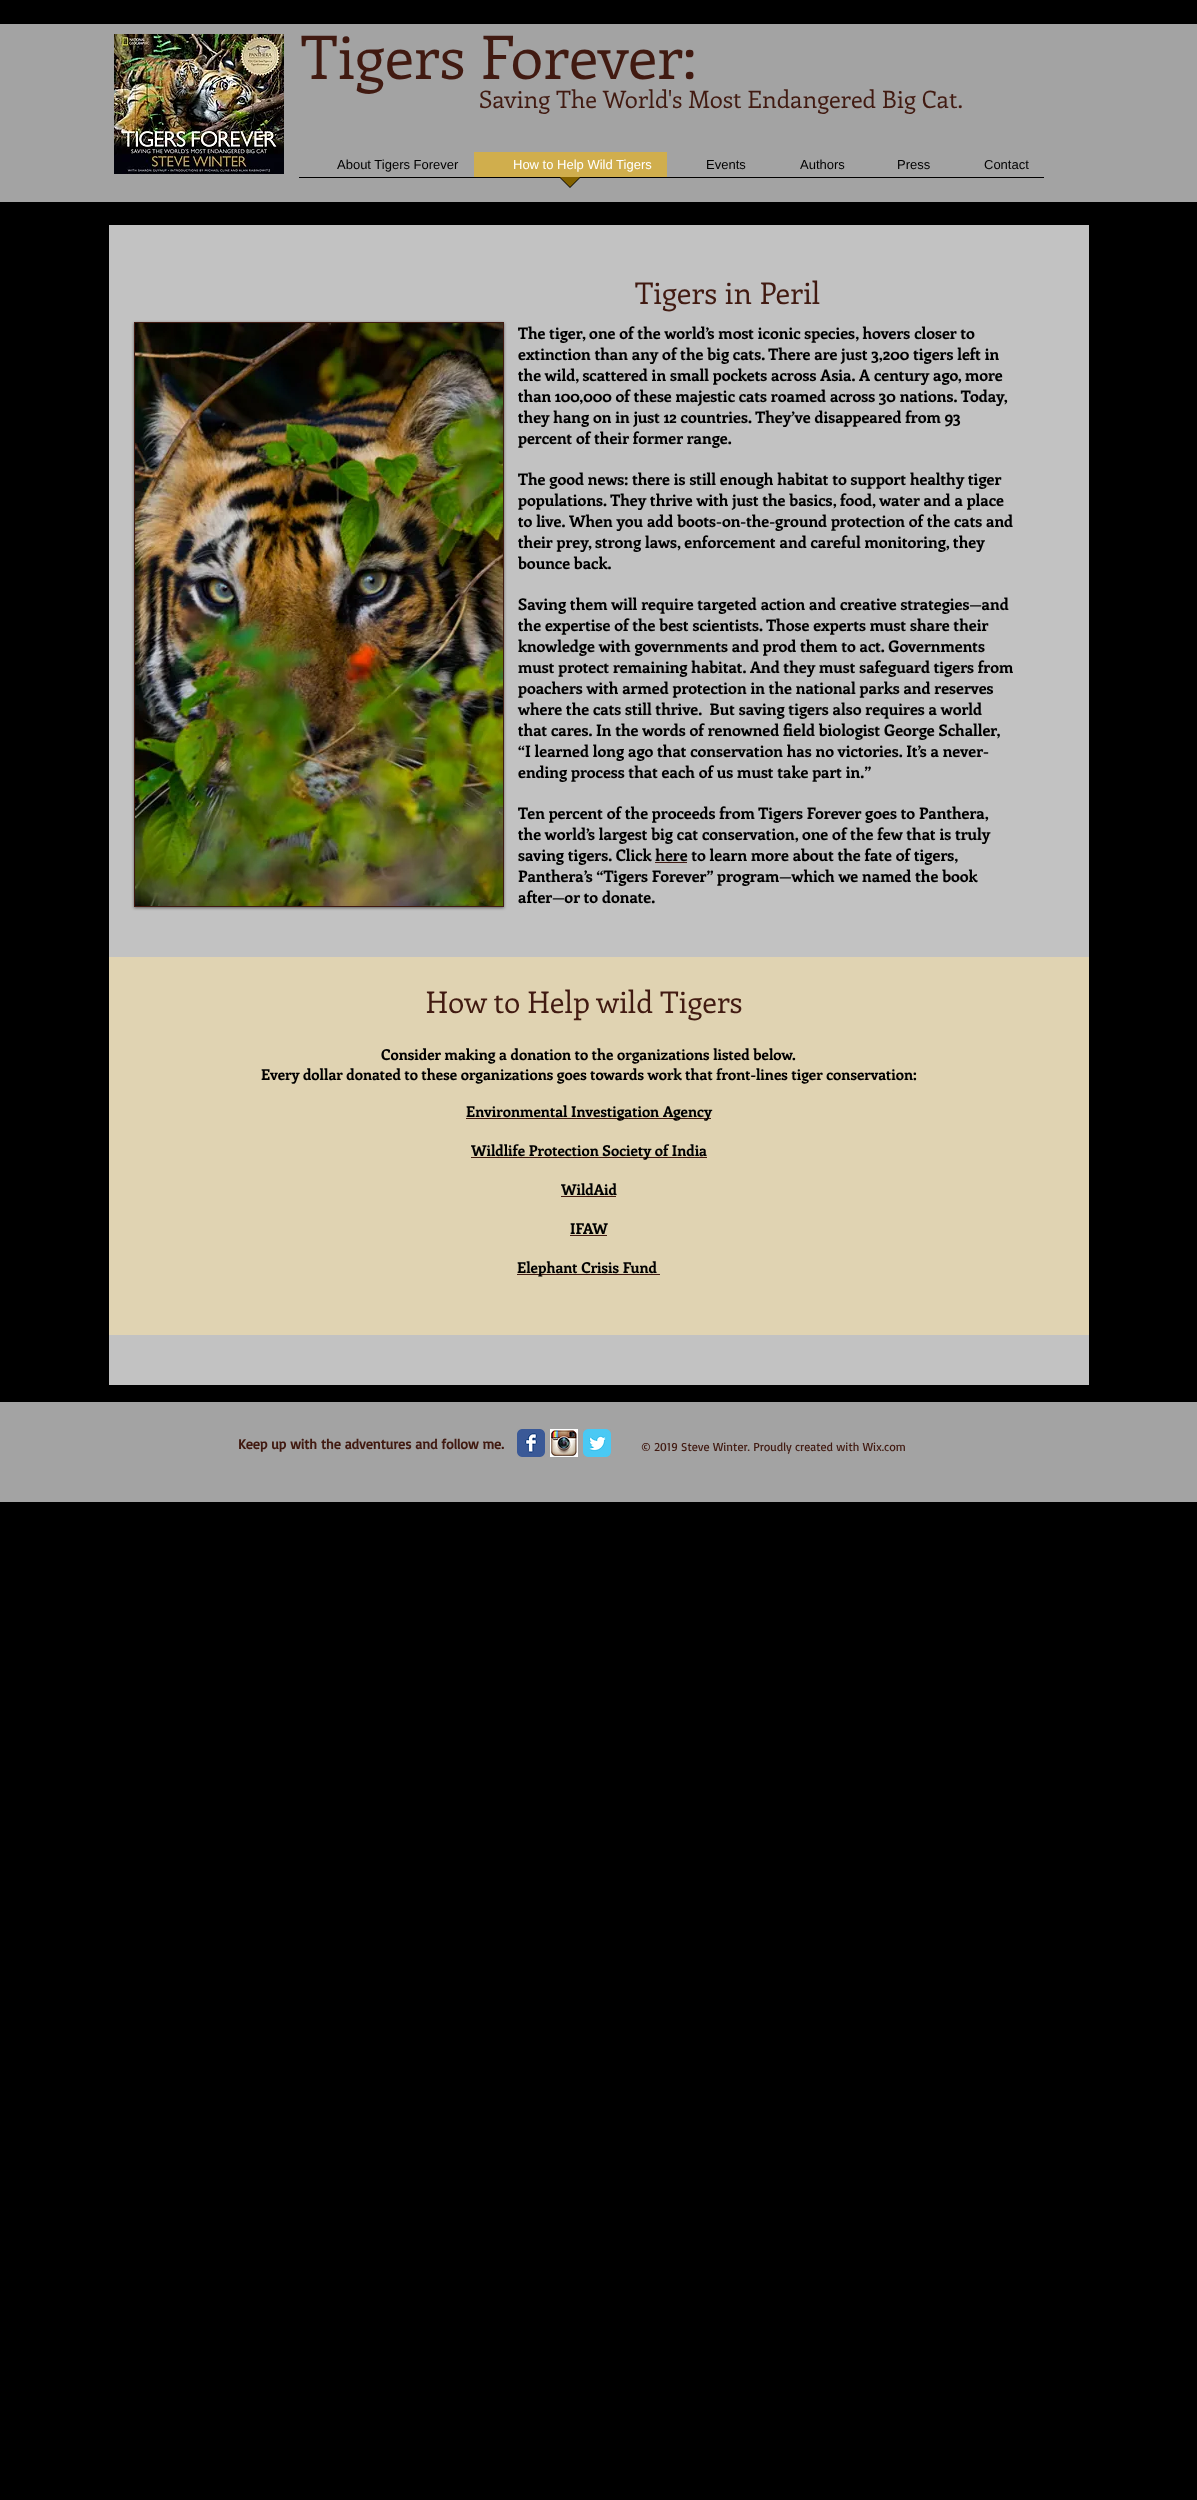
<!DOCTYPE html>
<meta charset="utf-8">
<style>body { margin: 0 } canvas { display: block }</style>
<canvas id="canvas" width="1197" height="2500"></canvas>
<script type="module">
  const canvas = document.getElementById("canvas");
  const ctx = canvas.getContext("2d");
  ctx.miterLimit = 4;
  ctx.fontKerning = "normal";
  async function loadImage(src) {
    const img = new Image();
    img.src = src;
    await img.decode();
    return img;
  }

  ctx.fillStyle = "#000000";
  ctx.fillRect(0, 0, 1197, 2500);
  ctx.fillStyle = "#a3a3a3";
  ctx.fillRect(0, 24, 1197, 178);
  ctx.drawImage(await loadImage("img1.png"), 114, 34, 170, 140);
  ctx.font = "60px Enriqueta";
  ctx.fillStyle = "#411a11";
  ctx.fillText("Tigers Forever:", 301, 79);
  ctx.font = "24px Enriqueta";
  ctx.fillText("Saving The World's Most Endangered Big Cat.", 479, 108);
  ctx.font = "13px Liberation Sans";
  ctx.fillStyle = "#000000";
  ctx.fillText("About Tigers Forever", 337, 169);
  ctx.fillStyle = "#d0ae4d";
  ctx.fillRect(474, 152, 193, 25);
  ctx.fillStyle = "#ffffff";
  ctx.fillText("How to Help Wild Tigers", 513, 169);
  ctx.fillStyle = "#000000";
  ctx.fillRect(299, 177, 745, 1);
  ctx.beginPath();
  ctx.moveTo(559, 177);
  ctx.lineTo(581, 177);
  ctx.lineTo(570, 188);
  ctx.closePath();
  ctx.fill();
  ctx.fillStyle = "#836200";
  ctx.beginPath();
  ctx.moveTo(560, 177);
  ctx.lineTo(580, 177);
  ctx.lineTo(570, 187);
  ctx.closePath();
  ctx.fill();
  ctx.fillStyle = "#000000";
  ctx.fillText("Events", 706, 169);
  ctx.fillText("Authors", 800, 169);
  ctx.fillText("Press", 897, 169);
  ctx.fillText("Contact", 984, 169);
  ctx.fillStyle = "#c2c2c2";
  ctx.fillRect(109, 225, 980, 1160);
  ctx.font = "30px Enriqueta";
  ctx.fillStyle = "#411a11";
  ctx.fillText("Tigers in Peril", 635, 304);
  ctx.fillStyle = "rgba(0, 0, 0, 0.5)";
  ctx.filter = "blur(1.5px)";
  ctx.beginPath();
  ctx.rect(134, 323, 370, 585);
  ctx.fill();
  ctx.filter = "none";
  ctx.fillStyle = "#411a11";
  ctx.fillRect(134, 322, 370, 585);
  ctx.drawImage(await loadImage("img2.png"), 135, 323, 368, 583);
  ctx.font = "bold 16px Enriqueta";
  ctx.fillStyle = "#000000";
  ctx.fillText("The tiger, one of the world’s most iconic species, hovers closer to", 518, 339);
  ctx.fillText("extinction than any of the big cats. There are just 3,200 tigers left in", 518, 360);
  ctx.fillText("the wild, scattered in small pockets across Asia. A century ago, more", 518, 381);
  ctx.fillText("than 100,000 of these majestic cats roamed across 30 nations. Today,", 518, 402);
  ctx.fillText("they hang on in just 12 countries. They’ve disappeared from 93", 518, 423);
  ctx.fillText("percent of their former range.", 518, 444);
  ctx.fillText("The good news: there is still enough habitat to support healthy tiger", 518, 485);
  ctx.fillText("populations. They thrive with just the basics, food, water and a place", 518, 506);
  ctx.fillText("to live. When you add boots-on-the-ground protection of the cats and", 518, 527);
  ctx.fillText("their prey, strong laws, enforcement and careful monitoring, they", 518, 548);
  ctx.fillText("bounce back.", 518, 569);
  ctx.fillText("Saving them will require targeted action and creative strategies—and", 518, 610);
  ctx.fillText("the expertise of the best scientists. Those experts must share their", 518, 631);
  ctx.fillText("knowledge with governments and prod them to act. Governments", 518, 652);
  ctx.fillText("must protect remaining habitat. And they must safeguard tigers from", 518, 673);
  ctx.fillText("poachers with armed protection in the national parks and reserves", 518, 694);
  ctx.fillText("where the cats still thrive.  But saving tigers also requires a world", 518, 715);
  ctx.fillText("that cares. In the words of renowned field biologist George Schaller,", 518, 736);
  ctx.fillText("“I learned long ago that conservation has no victories. It’s a never-", 518, 757);
  ctx.fillText("ending process that each of us must take part in.”", 518, 778);
  ctx.fillText("Ten percent of the proceeds from Tigers Forever goes to Panthera,", 518, 819);
  ctx.fillText("the world’s largest big cat conservation, one of the few that is truly", 518, 840);
  ctx.fillText("saving tigers. Click here to learn more about the fate of tigers,", 518, 861);
  ctx.fillStyle = "#411a11";
  ctx.fillRect(655, 862, 32, 1);
  ctx.fillStyle = "#000000";
  ctx.fillText("Panthera’s “Tigers Forever” program—which we named the book", 518, 882);
  ctx.fillText("after—or to donate.", 518, 903);
  ctx.fillStyle = "#e0d3b2";
  ctx.fillRect(109, 957, 980, 378);
  ctx.font = "30px Enriqueta";
  ctx.fillStyle = "#411a11";
  ctx.fillText("How to Help wild Tigers", 426, 1013);
  ctx.font = "bold 15px Enriqueta";
  ctx.fillStyle = "#000000";
  ctx.fillText("Consider making a donation to the organizations listed below.", 381, 1060);
  ctx.fillText("Every dollar donated to these organizations goes towards work that front-lines tiger conservation:", 261, 1080);
  ctx.fillStyle = "#411a11";
  ctx.fillRect(466, 1118, 245, 1);
  ctx.fillStyle = "#000000";
  ctx.fillText("Environmental Investigation Agency", 466, 1117);
  ctx.fillStyle = "#411a11";
  ctx.fillRect(471, 1157, 236, 1);
  ctx.fillStyle = "#000000";
  ctx.fillText("Wildlife Protection Society of India", 471, 1156);
  ctx.fillText("WildAid", 561, 1195);
  ctx.fillStyle = "#411a11";
  ctx.fillRect(561, 1196, 55, 1);
  ctx.fillStyle = "#000000";
  ctx.fillText("IFAW", 570, 1234);
  ctx.fillStyle = "#411a11";
  ctx.fillRect(570, 1235, 37, 1);
  ctx.fillRect(517, 1274, 143, 1);
  ctx.fillStyle = "#000000";
  ctx.fillText("Elephant Crisis Fund", 517, 1273);
  ctx.fillStyle = "#a3a3a3";
  ctx.fillRect(0, 1402, 1197, 100);
  ctx.font = "bold 14px Basic";
  ctx.fillStyle = "#411a11";
  ctx.fillText("Keep up with the adventures and follow me.", 238, 1449);
  ctx.drawImage(await loadImage("img3.png"), 517, 1429, 28, 28);
  ctx.drawImage(await loadImage("img4.png"), 550, 1429, 28, 28);
  ctx.drawImage(await loadImage("img5.png"), 583, 1429, 28, 28);
  ctx.font = "12px Basic";
  ctx.fillText("© 2019 Steve Winter. Proudly created with Wix.com", 641, 1451);
</script>
